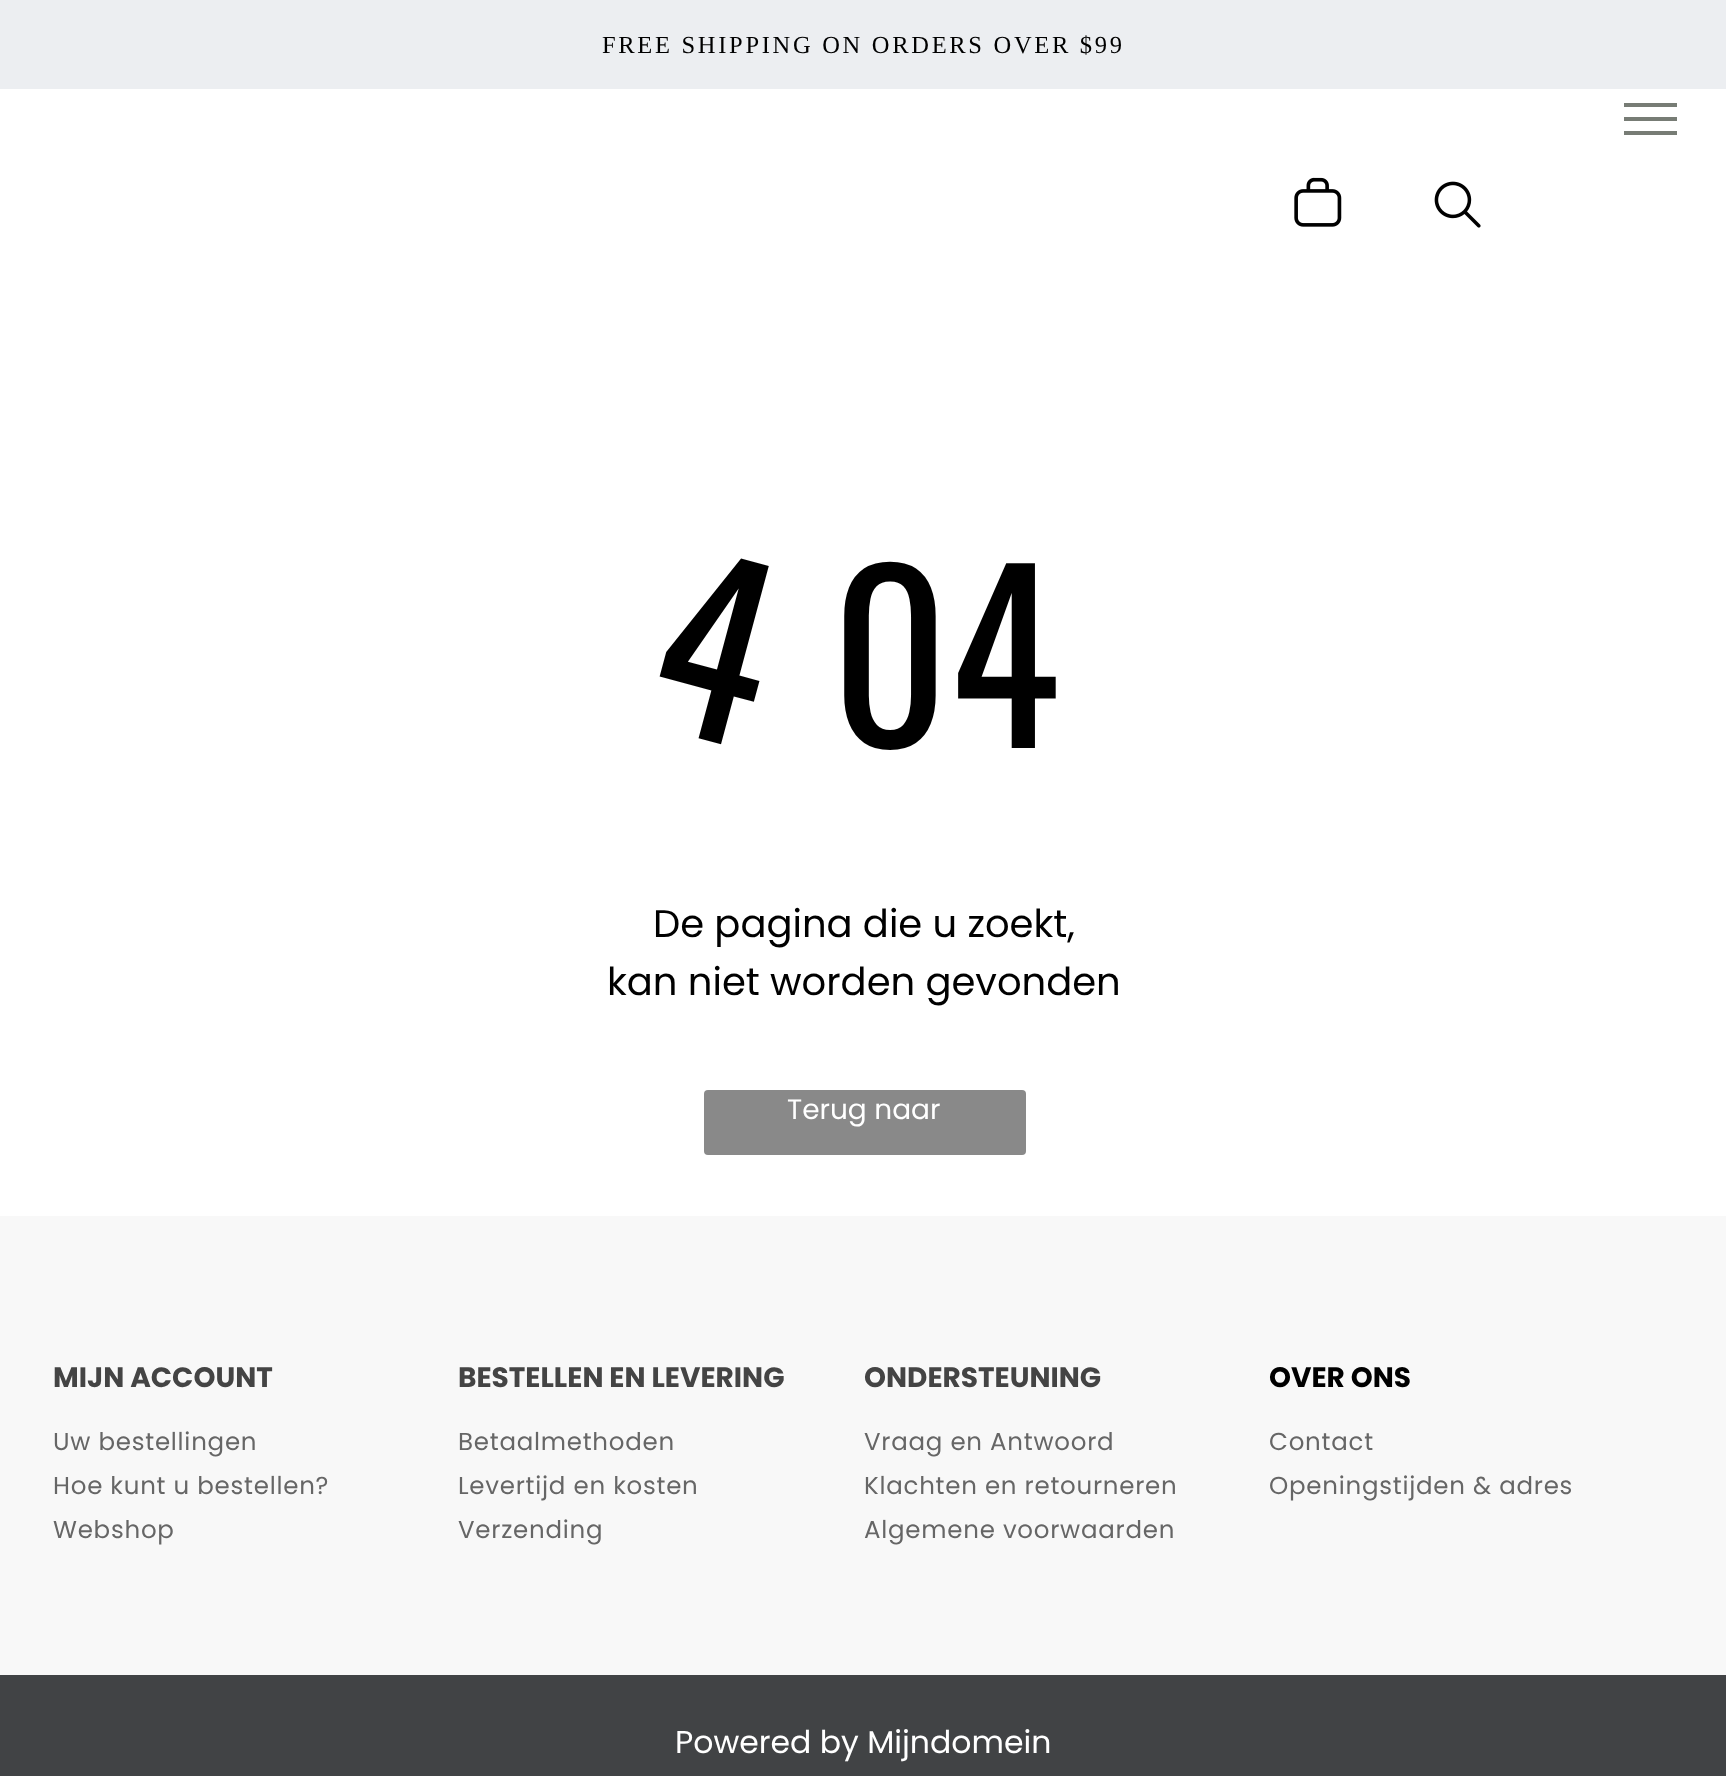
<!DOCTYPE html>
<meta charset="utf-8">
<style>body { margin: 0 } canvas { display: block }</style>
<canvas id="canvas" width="1726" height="1776"></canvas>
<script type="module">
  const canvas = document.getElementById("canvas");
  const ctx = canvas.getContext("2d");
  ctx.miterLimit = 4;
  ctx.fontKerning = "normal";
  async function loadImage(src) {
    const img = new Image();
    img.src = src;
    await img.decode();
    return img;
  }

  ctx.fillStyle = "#ffffff";
  ctx.fillRect(0, 0, 1726, 1776);
  ctx.fillStyle = "#eceef1";
  ctx.fillRect(0, 0, 1726, 89);
  ctx.letterSpacing = "2.7px";
  ctx.font = "24.5px Liberation Serif";
  ctx.fillStyle = "#000000";
  ctx.fillText("FREE SHIPPING ON ORDERS OVER $99", 602, 53);
  ctx.drawImage(await loadImage("img1.png"), 1294, 177, 48, 50);
  ctx.drawImage(await loadImage("img2.png"), 1434, 181, 47, 47);
  ctx.fillStyle = "#777c75";
  ctx.fillRect(1624, 103, 53, 4);
  ctx.fillRect(1624, 117, 53, 4);
  ctx.fillRect(1624, 131, 53, 4);
  ctx.letterSpacing = "0px";
  ctx.font = "228px Oswald";
  ctx.fillStyle = "#000000";
  ctx.save();
  ctx.translate(638, 722);
  ctx.rotate(15 * Math.PI / 180);
  ctx.fillText("4", 0, 0);
  ctx.restore();
  ctx.fillText("04", 831, 748);
  ctx.font = "38.5px Poppins";
  ctx.fillText("De pagina die u zoekt,", 653, 937);
  ctx.fillText("kan niet worden gevonden", 607, 995);
  ctx.fillStyle = "#898989";
  ctx.beginPath();
  ctx.roundRect(704, 1090, 322, 65, 4);
  ctx.fill();
  ctx.font = "28px Poppins";
  ctx.fillStyle = "#ffffff";
  ctx.fillText("Terug naar", 787, 1119);
  ctx.fillStyle = "#414345";
  ctx.fillRect(0, 1675, 1726, 101);
  ctx.fillStyle = "#f8f8f8";
  ctx.fillRect(0, 1216, 1726, 459);
  ctx.font = "bold 28px Poppins";
  ctx.fillStyle = "#444444";
  ctx.fillText("MIJN ACCOUNT", 53, 1387);
  ctx.letterSpacing = "0.75px";
  ctx.font = "24.5px Poppins";
  ctx.fillStyle = "#666666";
  ctx.fillText("Uw bestellingen", 53, 1450);
  ctx.fillText("Hoe kunt u bestellen?", 53, 1494);
  ctx.fillText("Webshop", 53, 1538);
  ctx.letterSpacing = "0px";
  ctx.font = "bold 28px Poppins";
  ctx.fillStyle = "#444444";
  ctx.fillText("BESTELLEN EN LEVERING", 458, 1387);
  ctx.letterSpacing = "0.75px";
  ctx.font = "24.5px Poppins";
  ctx.fillStyle = "#666666";
  ctx.fillText("Betaalmethoden", 458, 1450);
  ctx.fillText("Levertijd en kosten", 458, 1494);
  ctx.fillText("Verzending", 458, 1538);
  ctx.letterSpacing = "0px";
  ctx.font = "bold 28px Poppins";
  ctx.fillStyle = "#444444";
  ctx.fillText("ONDERSTEUNING", 864, 1387);
  ctx.letterSpacing = "0.75px";
  ctx.font = "24.5px Poppins";
  ctx.fillStyle = "#666666";
  ctx.fillText("Vraag en Antwoord", 864, 1450);
  ctx.fillText("Klachten en retourneren", 864, 1494);
  ctx.fillText("Algemene voorwaarden", 864, 1538);
  ctx.letterSpacing = "0px";
  ctx.font = "bold 28px Poppins";
  ctx.fillStyle = "#000000";
  ctx.fillText("OVER ONS", 1269, 1387);
  ctx.letterSpacing = "0.75px";
  ctx.font = "24.5px Poppins";
  ctx.fillStyle = "#666666";
  ctx.fillText("Contact", 1269, 1450);
  ctx.fillText("Openingstijden & adres", 1269, 1494);
  ctx.letterSpacing = "0px";
  ctx.font = "31.5px Poppins";
  ctx.fillStyle = "#ffffff";
  ctx.fillText("Powered by Mijndomein", 675, 1753);
</script>
